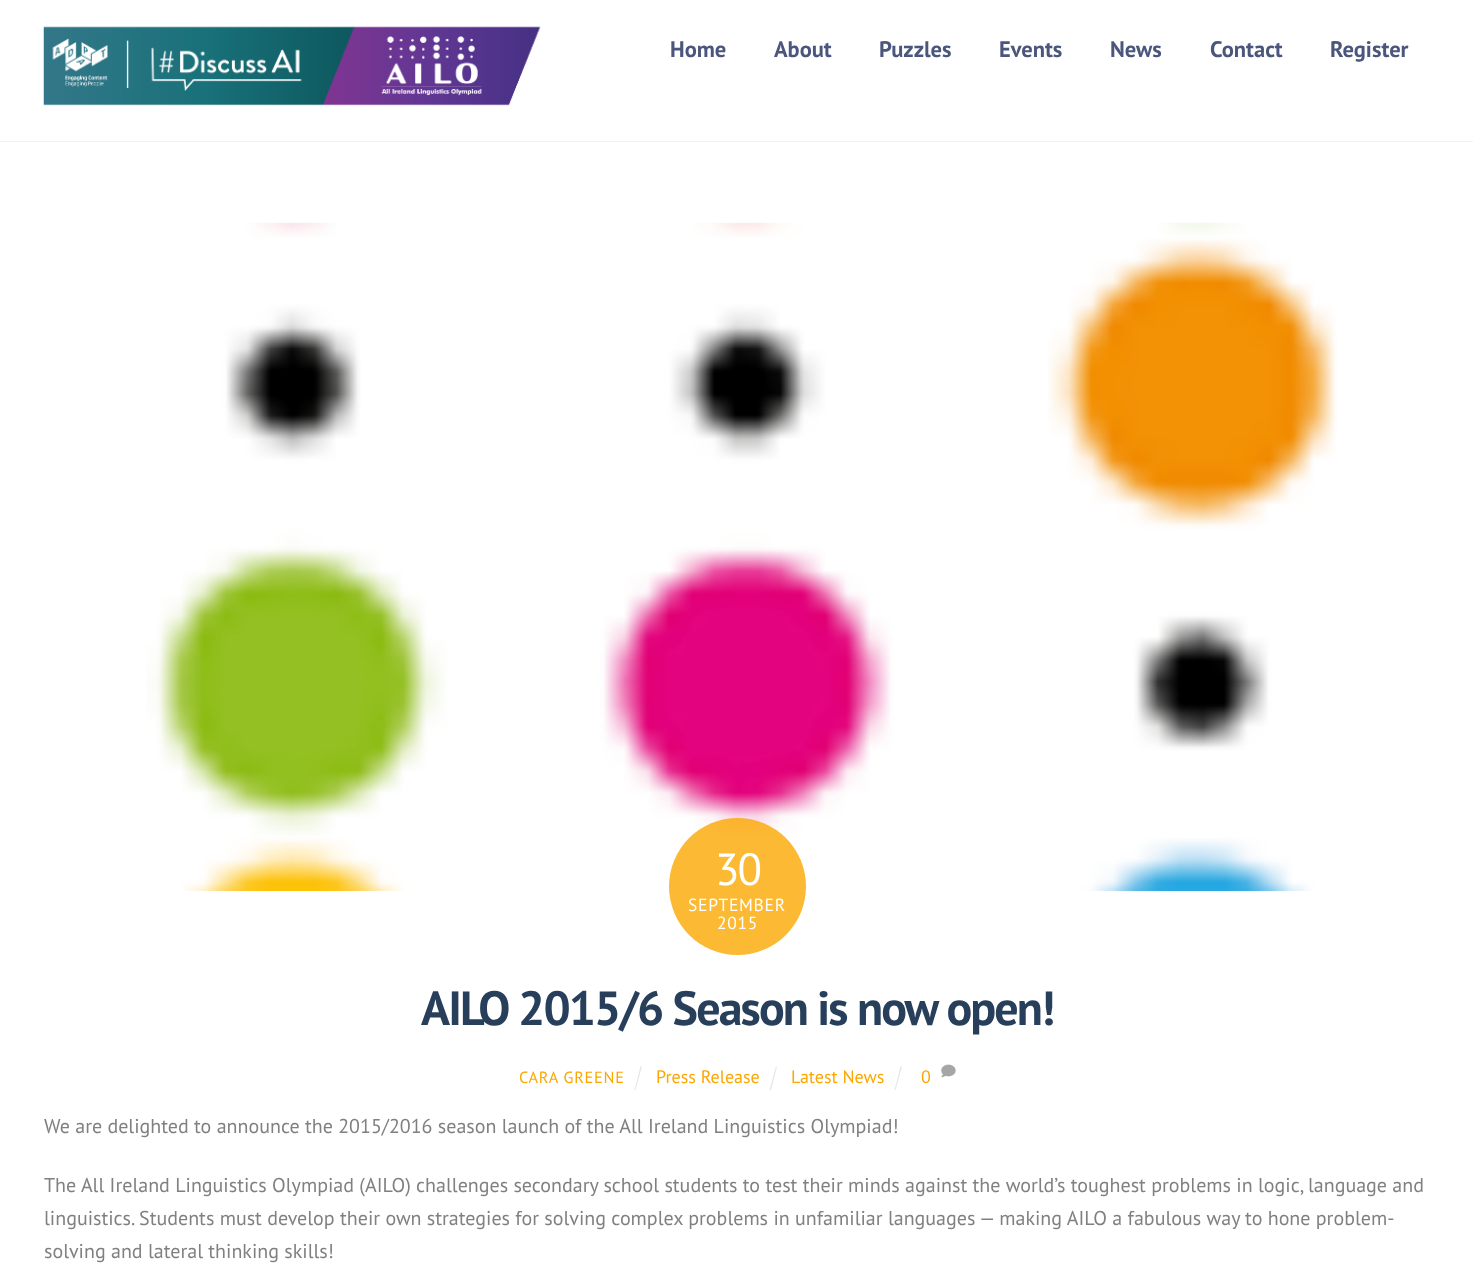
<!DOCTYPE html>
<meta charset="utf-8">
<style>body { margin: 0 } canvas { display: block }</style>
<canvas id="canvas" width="1473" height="1274"></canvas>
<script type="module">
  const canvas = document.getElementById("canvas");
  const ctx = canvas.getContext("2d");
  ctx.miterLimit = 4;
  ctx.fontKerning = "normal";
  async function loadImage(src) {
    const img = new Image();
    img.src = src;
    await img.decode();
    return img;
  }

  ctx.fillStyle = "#ffffff";
  ctx.fillRect(0, 0, 1473, 1274);
  ctx.fillStyle = "#f2f2f2";
  ctx.fillRect(0, 141, 1473, 1);
  ctx.drawImage(await loadImage("img1.png"), 43, 26, 498, 80);
  ctx.font = "bold 22.5px PT Sans";
  ctx.fillStyle = "#4b567d";
  ctx.fillText("Home", 670, 57);
  ctx.fillText("About", 774, 57);
  ctx.fillText("Puzzles", 879, 57);
  ctx.fillText("Events", 999, 57);
  ctx.fillText("News", 1110, 57);
  ctx.fillText("Contact", 1210, 57);
  ctx.fillText("Register", 1330, 57);
  ctx.drawImage(await loadImage("img2.png"), 146, 222, 1191, 670);
  ctx.fillStyle = "rgba(251, 167, 0, 0.8)";
  ctx.beginPath();
  ctx.arc(737.5, 886.5, 68.5, 0, Math.PI * 2);
  ctx.fill();
  ctx.letterSpacing = "-2px";
  ctx.font = "45px PT Sans";
  ctx.fillStyle = "#ffffff";
  ctx.fillText("30", 715, 885);
  ctx.letterSpacing = "0.75px";
  ctx.font = "17.5px PT Sans";
  ctx.fillText("SEPTEMBER", 688, 911);
  ctx.fillText("2015", 717, 929);
  ctx.letterSpacing = "-1.9px";
  ctx.font = "bold 48px PT Sans";
  ctx.fillStyle = "#273f5b";
  ctx.fillText("AILO 2015/6 Season is now open!", 421, 1025);
  ctx.letterSpacing = "0.75px";
  ctx.font = "16.25px PT Sans";
  ctx.fillStyle = "#fba700";
  ctx.fillText("CARA GREENE", 519, 1083);
  ctx.fillStyle = "#e6e6e6";
  ctx.beginPath();
  ctx.moveTo(640.5, 1066.5);
  ctx.lineTo(642, 1066.5);
  ctx.lineTo(635.5, 1090);
  ctx.lineTo(634.5, 1090);
  ctx.closePath();
  ctx.fill();
  ctx.letterSpacing = "0px";
  ctx.font = "18px PT Sans";
  ctx.fillStyle = "#fba700";
  ctx.fillText("Press Release", 656, 1083);
  ctx.fillStyle = "#e6e6e6";
  ctx.beginPath();
  ctx.moveTo(776, 1066.5);
  ctx.lineTo(777, 1066.5);
  ctx.lineTo(771, 1090);
  ctx.lineTo(769.5, 1090);
  ctx.closePath();
  ctx.fill();
  ctx.fillStyle = "#fba700";
  ctx.fillText("Latest News", 791, 1083);
  ctx.fillStyle = "#e6e6e6";
  ctx.beginPath();
  ctx.moveTo(900.5, 1066.5);
  ctx.lineTo(902, 1066.5);
  ctx.lineTo(895.5, 1090);
  ctx.lineTo(894.5, 1090);
  ctx.closePath();
  ctx.fill();
  ctx.fillStyle = "#fba700";
  ctx.fillText("0", 921, 1083);
  ctx.drawImage(await loadImage("img3.png"), 941, 1064, 15, 14);
  ctx.font = "20px PT Sans";
  ctx.fillStyle = "#808080";
  ctx.fillText("We are delighted to announce the 2015/2016 season launch of the All Ireland Linguistics Olympiad!", 44, 1133);
  ctx.fillText("The All Ireland Linguistics Olympiad (AILO) challenges secondary school students to test their minds against the world’s toughest problems in logic, language and", 44, 1192);
  ctx.fillText("linguistics. Students must develop their own strategies for solving complex problems in unfamiliar languages — making AILO a fabulous way to hone problem-", 44, 1225);
  ctx.fillText("solving and lateral thinking skills!", 44, 1258);
</script>
